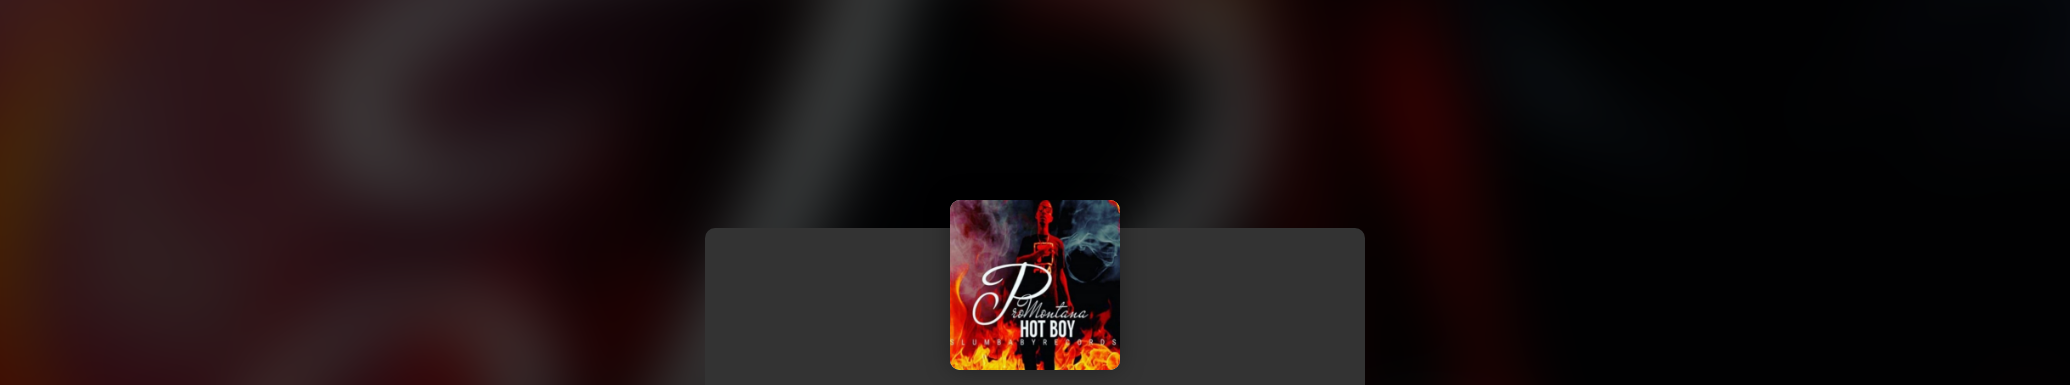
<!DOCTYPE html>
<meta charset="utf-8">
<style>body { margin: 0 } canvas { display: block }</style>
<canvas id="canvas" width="2070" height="385"></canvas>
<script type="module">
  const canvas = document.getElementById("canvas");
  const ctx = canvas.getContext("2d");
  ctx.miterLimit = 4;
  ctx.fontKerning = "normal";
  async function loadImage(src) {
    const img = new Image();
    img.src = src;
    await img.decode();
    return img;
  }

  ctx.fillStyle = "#000000";
  ctx.fillRect(0, 0, 2070, 385);
  ctx.drawImage(await loadImage("img1.png"), 0, 0, 2070, 385);
  ctx.fillStyle = "#333333";
  ctx.beginPath();
  ctx.roundRect(705, 228, 660, 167, 10);
  ctx.fill();
  ctx.fillStyle = "rgba(0, 0, 0, 0.35)";
  ctx.filter = "blur(12.5px)";
  ctx.beginPath();
  ctx.roundRect(950, 200, 170, 170, 10);
  ctx.fill();
  ctx.filter = "none";
  ctx.fillStyle = "#cccccc";
  ctx.beginPath();
  ctx.roundRect(950, 200, 170, 170, 10);
  ctx.fill();
  ctx.drawImage(await loadImage("img2.png"), 950, 200, 170, 170);
</script>
